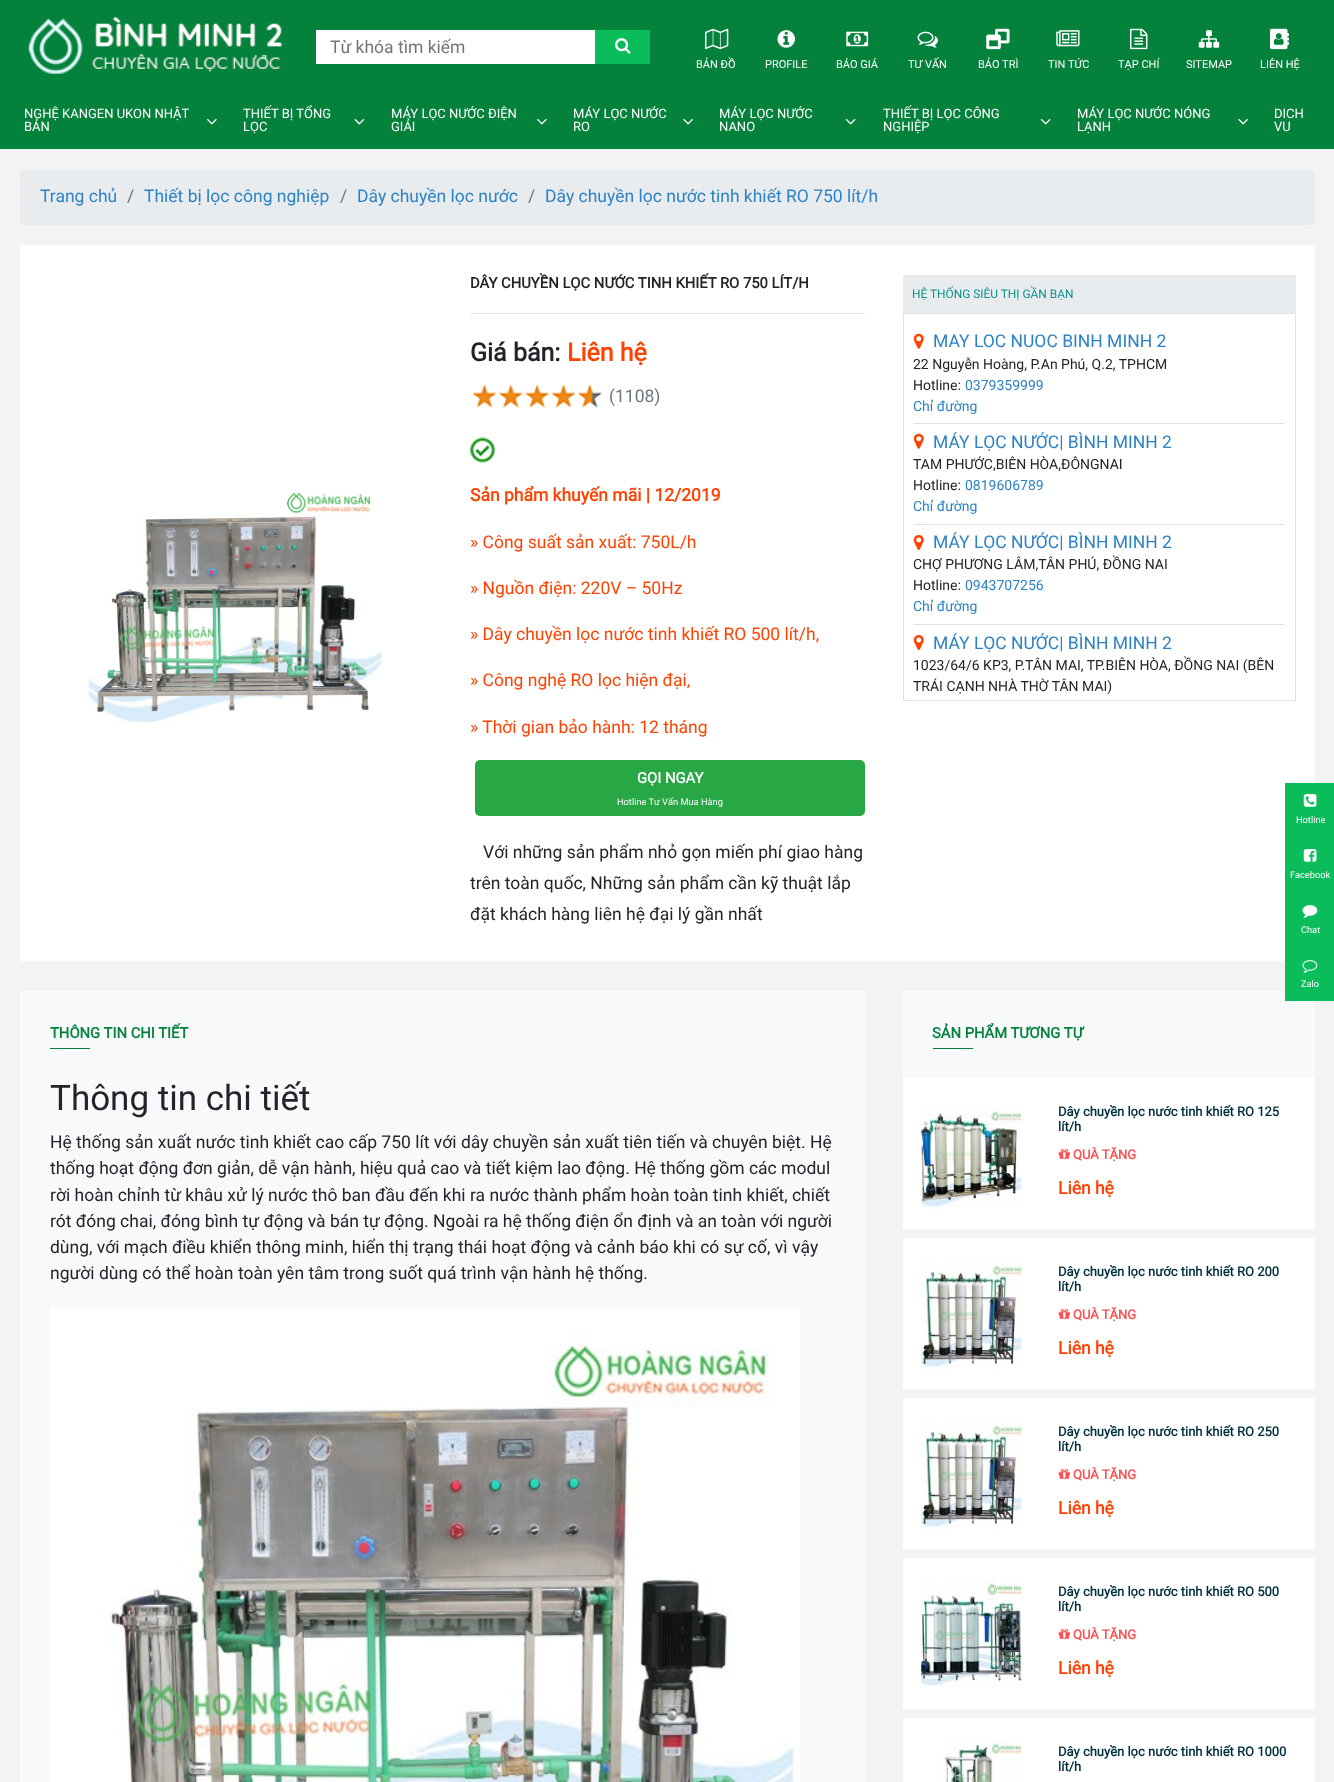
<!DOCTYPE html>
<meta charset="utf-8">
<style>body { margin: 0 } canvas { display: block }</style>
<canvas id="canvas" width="1334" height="1782"></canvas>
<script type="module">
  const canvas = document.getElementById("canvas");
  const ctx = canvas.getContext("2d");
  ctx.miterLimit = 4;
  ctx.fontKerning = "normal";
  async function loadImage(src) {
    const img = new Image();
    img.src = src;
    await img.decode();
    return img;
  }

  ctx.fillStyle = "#f3f3f3";
  ctx.fillRect(0, 0, 1334, 1782);
  ctx.fillStyle = "#04823c";
  ctx.fillRect(0, 0, 1334, 149);
  ctx.drawImage(await loadImage("img1.png"), 28, 17, 255, 57);
  ctx.fillStyle = "#ffffff";
  ctx.fillRect(316, 30, 279, 34);
  ctx.font = "17.5px Roboto";
  ctx.fillStyle = "#757575";
  ctx.fillText("Từ khóa tìm kiếm", 330, 53);
  ctx.fillStyle = "#0abd5a";
  ctx.fillRect(595, 30, 55, 34);
  ctx.drawImage(await loadImage("img2.png"), 615, 38, 16, 16);
  ctx.drawImage(await loadImage("img3.png"), 705, 28, 24, 22);
  ctx.font = "11px Roboto";
  ctx.fillStyle = "#ffffff";
  ctx.fillText("BẢN ĐỒ", 696, 68);
  ctx.drawImage(await loadImage("img4.png"), 777, 30, 18, 18);
  ctx.fillText("PROFILE", 765, 68);
  ctx.drawImage(await loadImage("img5.png"), 846, 31, 23, 16);
  ctx.fillText("BÁO GIÁ", 836, 68);
  ctx.drawImage(await loadImage("img6.png"), 917, 31, 21, 17);
  ctx.fillText("TƯ VẤN", 908, 68);
  ctx.drawImage(await loadImage("img7.png"), 986, 28, 24, 22);
  ctx.fillText("BẢO TRÌ", 978, 68);
  ctx.drawImage(await loadImage("img8.png"), 1056, 30, 24, 17);
  ctx.fillText("TIN TỨC", 1048, 68);
  ctx.drawImage(await loadImage("img9.png"), 1130, 28, 18, 22);
  ctx.fillText("TẠP CHÍ", 1118, 68);
  ctx.drawImage(await loadImage("img10.png"), 1198, 30, 22, 18);
  ctx.fillText("SITEMAP", 1186, 68);
  ctx.drawImage(await loadImage("img11.png"), 1270, 28, 19, 22);
  ctx.fillText("LIÊN HỆ", 1260, 68);
  ctx.font = "13px Roboto";
  ctx.fillText("NGHỆ KANGEN UKON NHẬT", 24, 118);
  ctx.fillText("BẢN", 24, 131);
  ctx.drawImage(await loadImage("img12.png"), 207, 118, 10, 7);
  ctx.fillText("THIẾT BỊ TỔNG", 243, 118);
  ctx.fillText("LỌC", 243, 131);
  ctx.drawImage(await loadImage("img13.png"), 354, 118, 11, 7);
  ctx.fillText("MÁY LỌC NƯỚC ĐIỆN", 391, 118);
  ctx.fillText("GIẢI", 391, 131);
  ctx.drawImage(await loadImage("img12.png"), 537, 118, 10, 7);
  ctx.fillText("MÁY LỌC NƯỚC", 573, 118);
  ctx.fillText("RO", 573, 131);
  ctx.drawImage(await loadImage("img14.png"), 683, 118, 10, 7);
  ctx.fillText("MÁY LỌC NƯỚC", 719, 118);
  ctx.fillText("NANO", 719, 131);
  ctx.drawImage(await loadImage("img15.png"), 845, 118, 11, 7);
  ctx.fillText("THIẾT BỊ LỌC CÔNG", 883, 118);
  ctx.fillText("NGHIỆP", 883, 131);
  ctx.drawImage(await loadImage("img15.png"), 1040, 118, 11, 7);
  ctx.fillText("MÁY LỌC NƯỚC NÓNG", 1077, 118);
  ctx.fillText("LẠNH", 1077, 131);
  ctx.drawImage(await loadImage("img14.png"), 1238, 118, 10, 7);
  ctx.fillText("DICH", 1274, 118);
  ctx.fillText("VU", 1274, 131);
  ctx.fillStyle = "#e9ecef";
  ctx.beginPath();
  ctx.roundRect(20, 169, 1295, 56, 5);
  ctx.fill();
  ctx.font = "17.5px Roboto";
  ctx.fillStyle = "#2d82c5";
  ctx.fillText("Trang chủ", 40, 202);
  ctx.fillStyle = "#6c757d";
  ctx.fillText("/", 127, 202);
  ctx.fillStyle = "#2d82c5";
  ctx.fillText("Thiết bị lọc công nghiệp", 144, 202);
  ctx.fillStyle = "#6c757d";
  ctx.fillText("/", 340, 202);
  ctx.fillStyle = "#2d82c5";
  ctx.fillText("Dây chuyền lọc nước", 357, 202);
  ctx.fillStyle = "#6c757d";
  ctx.fillText("/", 528, 202);
  ctx.fillStyle = "#2d82c5";
  ctx.fillText("Dây chuyền lọc nước tinh khiết RO 750 lít/h", 545, 202);
  ctx.fillStyle = "#ffffff";
  ctx.fillRect(20, 245, 1295, 716);
  ctx.drawImage(await loadImage("img16.png"), 87, 492, 295, 231);
  ctx.font = "bold 14.8px Roboto";
  ctx.fillStyle = "#212529";
  ctx.fillText("DÂY CHUYỀN LỌC NƯỚC TINH KHIẾT RO 750 LÍT/H", 470, 288);
  ctx.fillStyle = "#e6e6e6";
  ctx.fillRect(470, 313, 395, 1);
  ctx.font = "bold 25px Roboto";
  ctx.fillStyle = "#212529";
  ctx.fillText("Giá bán:", 470, 361);
  ctx.fillStyle = "#ff4200";
  ctx.fillText("Liên hệ", 567, 361);
  ctx.drawImage(await loadImage("img17.png"), 472, 384, 130, 24);
  ctx.font = "17.5px Roboto";
  ctx.fillStyle = "#6c757d";
  ctx.fillText("(1108)", 609, 402);
  ctx.drawImage(await loadImage("img18.png"), 470, 437, 25, 26);
  ctx.font = "bold 17.5px Roboto";
  ctx.fillStyle = "#ff4200";
  ctx.fillText("Sản phẩm khuyến mãi | 12/2019", 470, 501);
  ctx.font = "17.5px Roboto";
  ctx.fillText("» Công suất sản xuất: 750L/h", 470, 548);
  ctx.fillText("» Nguồn điện: 220V – 50Hz", 470, 594);
  ctx.fillText("» Dây chuyền lọc nước tinh khiết RO 500 lít/h,", 470, 640);
  ctx.fillText("» Công nghệ RO lọc hiện đại,", 470, 686);
  ctx.fillText("» Thời gian bảo hành: 12 tháng", 470, 733);
  ctx.fillStyle = "#28a745";
  ctx.beginPath();
  ctx.roundRect(475, 760, 390, 56, 5);
  ctx.fill();
  ctx.font = "bold 14.8px Roboto";
  ctx.fillStyle = "#ffffff";
  ctx.fillText("GỌI NGAY", 637, 783);
  ctx.font = "9.25px Roboto";
  ctx.fillText("Hotline Tư Vấn Mua Hàng", 617, 805);
  ctx.font = "17.5px Roboto";
  ctx.fillStyle = "#212529";
  ctx.fillText("Với những sản phẩm nhỏ gọn miến phí giao hàng", 483, 858);
  ctx.fillText("trên toàn quốc, Những sản phẩm cần kỹ thuật lắp", 470, 889);
  ctx.fillText("đặt khách hàng liên hệ đại lý gần nhất", 470, 920);
  ctx.fillStyle = "#e9ecef";
  ctx.fillRect(903, 275, 393, 38);
  ctx.font = "11.9px Roboto";
  ctx.fillStyle = "#0b908c";
  ctx.fillText("HỆ THỐNG SIÊU THỊ GẦN BẠN", 912, 298);
  ctx.strokeStyle = "#dee2e6";
  ctx.strokeRect(903.5, 313.5, 392, 387);
  ctx.fillStyle = "#dee2e6";
  ctx.fillRect(914, 423, 371, 1);
  ctx.drawImage(await loadImage("img19.png"), 913, 333, 11, 16);
  ctx.font = "17.5px Roboto";
  ctx.fillStyle = "#2d82c5";
  ctx.fillText("MAY LOC NUOC BINH MINH 2", 933, 347);
  ctx.font = "14px Roboto";
  ctx.fillStyle = "#212529";
  ctx.fillText("22 Nguyễn Hoàng, P.An Phú, Q.2, TPHCM", 913, 369);
  ctx.fillText("Hotline:", 913, 390);
  ctx.fillStyle = "#2d82c5";
  ctx.fillText("0379359999", 965, 390);
  ctx.fillText("Chỉ đường", 913, 411);
  ctx.fillStyle = "#dee2e6";
  ctx.fillRect(914, 524, 371, 1);
  ctx.drawImage(await loadImage("img19.png"), 913, 433, 11, 16);
  ctx.font = "17.5px Roboto";
  ctx.fillStyle = "#2d82c5";
  ctx.fillText("MÁY LỌC NƯỚC| BÌNH MINH 2", 933, 448);
  ctx.font = "14px Roboto";
  ctx.fillStyle = "#212529";
  ctx.fillText("TAM PHƯỚC,BIÊN HÒA,ĐÔNGNAI", 913, 469);
  ctx.fillText("Hotline:", 913, 490);
  ctx.fillStyle = "#2d82c5";
  ctx.fillText("0819606789", 965, 490);
  ctx.fillText("Chỉ đường", 913, 511);
  ctx.fillStyle = "#dee2e6";
  ctx.fillRect(914, 624, 371, 1);
  ctx.drawImage(await loadImage("img20.png"), 913, 535, 11, 15);
  ctx.font = "17.5px Roboto";
  ctx.fillStyle = "#2d82c5";
  ctx.fillText("MÁY LỌC NƯỚC| BÌNH MINH 2", 933, 548);
  ctx.font = "14px Roboto";
  ctx.fillStyle = "#212529";
  ctx.fillText("CHỢ PHƯƠNG LÂM,TÂN PHÚ, ĐỒNG NAI", 913, 569);
  ctx.fillText("Hotline:", 913, 590);
  ctx.fillStyle = "#2d82c5";
  ctx.fillText("0943707256", 965, 590);
  ctx.fillText("Chỉ đường", 913, 611);
  ctx.drawImage(await loadImage("img20.png"), 913, 635, 11, 15);
  ctx.font = "17.5px Roboto";
  ctx.fillText("MÁY LỌC NƯỚC| BÌNH MINH 2", 933, 649);
  ctx.font = "14px Roboto";
  ctx.fillStyle = "#212529";
  ctx.fillText("1023/64/6 KP3, P.TÂN MAI, TP.BIÊN HÒA, ĐỒNG NAI (BÊN", 913, 670);
  ctx.fillText("TRÁI CẠNH NHÀ THỜ TÂN MAI)", 913, 691);
  ctx.fillStyle = "#f8f9fa";
  ctx.fillRect(20, 991, 845, 791);
  ctx.font = "bold 14.8px Roboto";
  ctx.fillStyle = "#04823c";
  ctx.fillText("THÔNG TIN CHI TIẾT", 50, 1038);
  ctx.fillRect(50, 1048, 40, 1);
  ctx.font = "35px Roboto";
  ctx.fillStyle = "#212529";
  ctx.fillText("Thông tin chi tiết", 50, 1110);
  ctx.font = "17.5px Roboto";
  ctx.fillText("Hệ thống sản xuất nước tinh khiết cao cấp 750 lít với dây chuyền sản xuất tiên tiến và chuyên biệt. Hệ", 50, 1148);
  ctx.fillText("thống hoạt động đơn giản, dễ vận hành, hiệu quả cao và tiết kiệm lao động. Hệ thống gồm các modul", 50, 1174);
  ctx.fillText("rời hoàn chỉnh từ khâu xử lý nước thô ban đầu đến khi ra nước thành phẩm hoàn toàn tinh khiết, chiết", 50, 1201);
  ctx.fillText("rót đóng chai, đóng bình tự động và bán tự động. Ngoài ra hệ thống điện ổn định và an toàn với người", 50, 1227);
  ctx.fillText("dùng, với mạch điều khiển thông minh, hiển thị trạng thái hoạt động và cảnh báo khi có sự cố, vì vậy", 50, 1253);
  ctx.fillText("người dùng có thể hoàn toàn yên tâm trong suốt quá trình vận hành hệ thống.", 50, 1279);
  ctx.drawImage(await loadImage("img21.png"), 50, 1308, 750, 474);
  ctx.fillStyle = "#f8f9fa";
  ctx.fillRect(903, 991, 412, 87);
  ctx.font = "bold 14.8px Roboto";
  ctx.fillStyle = "#04823c";
  ctx.fillText("SẢN PHẨM TƯƠNG TỰ", 932, 1038);
  ctx.fillRect(933, 1048, 40, 1);
  ctx.fillStyle = "#ffffff";
  ctx.fillRect(903, 1078, 412, 151);
  ctx.drawImage(await loadImage("img22.png"), 921, 1107, 101, 102);
  ctx.font = "bold 13px Roboto";
  ctx.fillStyle = "#023040";
  ctx.fillText("Dây chuyền lọc nước tinh khiết RO 125", 1058, 1116);
  ctx.fillText("lít/h", 1058, 1131);
  ctx.drawImage(await loadImage("img23.png"), 1058, 1149, 12, 10);
  ctx.fillStyle = "#ff4c4c";
  ctx.fillText("QUÀ TẶNG", 1073, 1159);
  ctx.font = "bold 17.5px Roboto";
  ctx.fillStyle = "#ff4200";
  ctx.fillText("Liên hệ", 1058, 1194);
  ctx.fillStyle = "#ffffff";
  ctx.fillRect(903, 1238, 412, 151);
  ctx.drawImage(await loadImage("img24.png"), 921, 1258, 101, 111);
  ctx.font = "bold 13px Roboto";
  ctx.fillStyle = "#023040";
  ctx.fillText("Dây chuyền lọc nước tinh khiết RO 200", 1058, 1276);
  ctx.fillText("lít/h", 1058, 1291);
  ctx.drawImage(await loadImage("img23.png"), 1058, 1309, 12, 10);
  ctx.fillStyle = "#ff4c4c";
  ctx.fillText("QUÀ TẶNG", 1073, 1319);
  ctx.font = "bold 17.5px Roboto";
  ctx.fillStyle = "#ff4200";
  ctx.fillText("Liên hệ", 1058, 1354);
  ctx.fillStyle = "#ffffff";
  ctx.fillRect(903, 1398, 412, 151);
  ctx.drawImage(await loadImage("img24.png"), 921, 1418, 101, 111);
  ctx.font = "bold 13px Roboto";
  ctx.fillStyle = "#023040";
  ctx.fillText("Dây chuyền lọc nước tinh khiết RO 250", 1058, 1436);
  ctx.fillText("lít/h", 1058, 1451);
  ctx.drawImage(await loadImage("img23.png"), 1058, 1469, 12, 10);
  ctx.fillStyle = "#ff4c4c";
  ctx.fillText("QUÀ TẶNG", 1073, 1479);
  ctx.font = "bold 17.5px Roboto";
  ctx.fillStyle = "#ff4200";
  ctx.fillText("Liên hệ", 1058, 1514);
  ctx.fillStyle = "#ffffff";
  ctx.fillRect(903, 1558, 412, 151);
  ctx.drawImage(await loadImage("img25.png"), 921, 1578, 101, 111);
  ctx.font = "bold 13px Roboto";
  ctx.fillStyle = "#023040";
  ctx.fillText("Dây chuyền lọc nước tinh khiết RO 500", 1058, 1596);
  ctx.fillText("lít/h", 1058, 1611);
  ctx.drawImage(await loadImage("img23.png"), 1058, 1629, 12, 10);
  ctx.fillStyle = "#ff4c4c";
  ctx.fillText("QUÀ TẶNG", 1073, 1639);
  ctx.font = "bold 17.5px Roboto";
  ctx.fillStyle = "#ff4200";
  ctx.fillText("Liên hệ", 1058, 1674);
  ctx.fillStyle = "#ffffff";
  ctx.fillRect(903, 1718, 412, 64);
  ctx.drawImage(await loadImage("img26.png"), 943, 1739, 79, 43);
  ctx.font = "bold 13px Roboto";
  ctx.fillStyle = "#023040";
  ctx.fillText("Dây chuyền lọc nước tinh khiết RO 1000", 1058, 1756);
  ctx.fillText("lít/h", 1058, 1771);
  ctx.fillStyle = "#0abd5a";
  ctx.fillRect(1285, 783, 49, 218);
  ctx.drawImage(await loadImage("img27.png"), 1303, 794, 14, 13);
  ctx.font = "9.25px Roboto";
  ctx.fillStyle = "#ffffff";
  ctx.fillText("Hotline", 1296, 823);
  ctx.drawImage(await loadImage("img28.png"), 1303, 849, 14, 13);
  ctx.fillText("Facebook", 1290, 878);
  ctx.drawImage(await loadImage("img29.png"), 1302, 905, 16, 13);
  ctx.fillText("Chat", 1301, 933);
  ctx.drawImage(await loadImage("img30.png"), 1302, 960, 16, 13);
  ctx.fillText("Zalo", 1301, 987);
</script>
